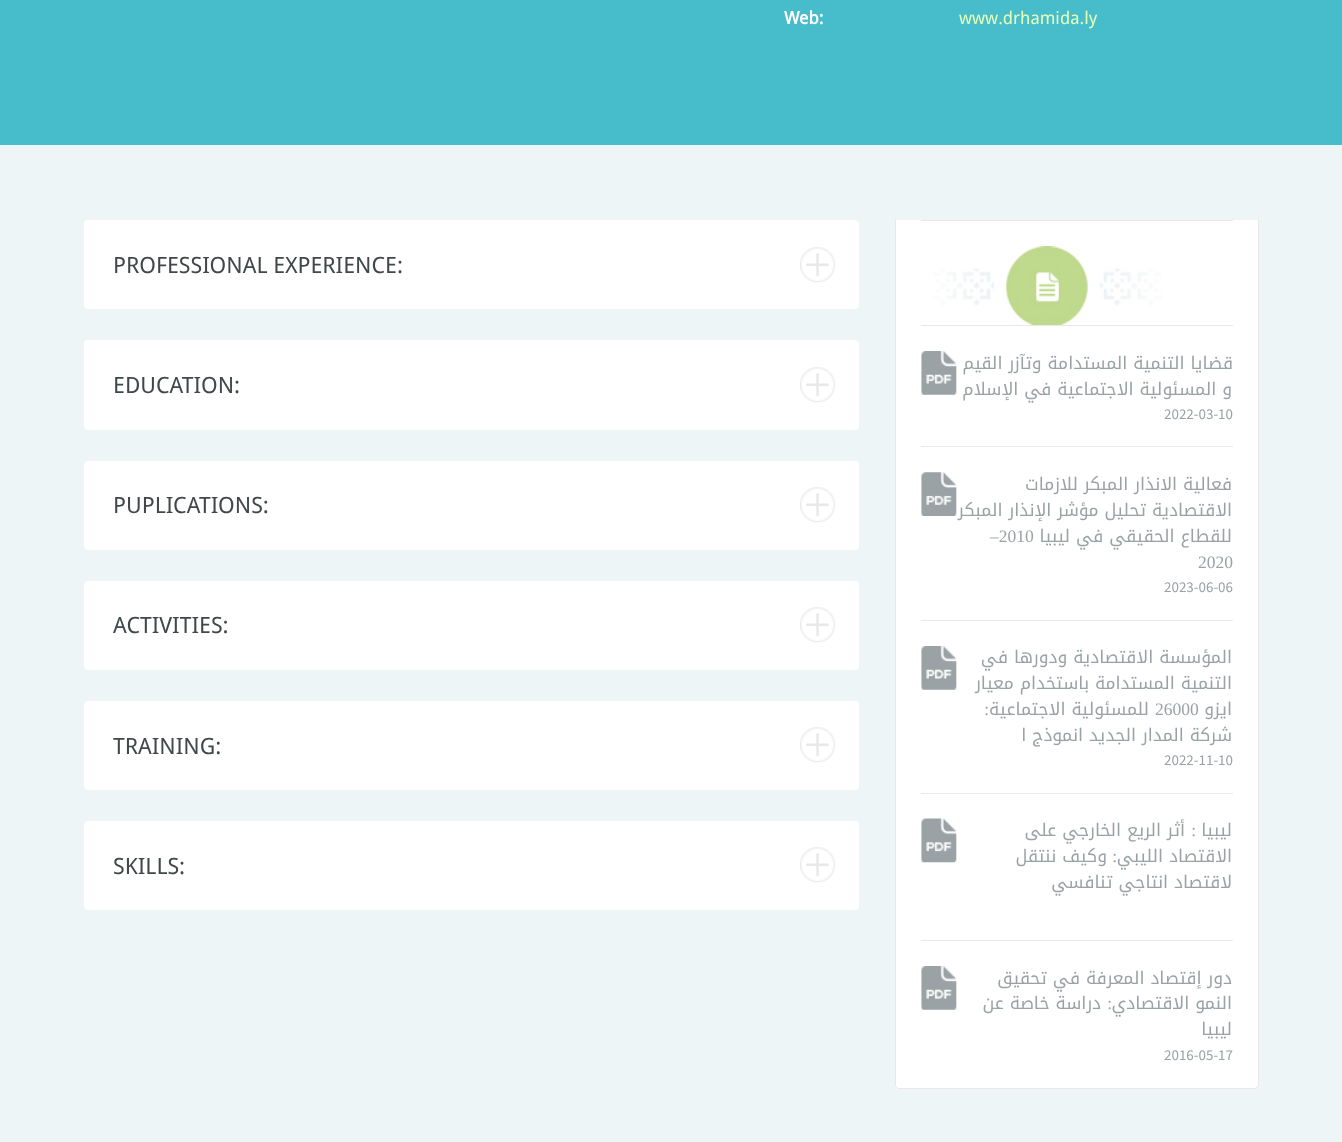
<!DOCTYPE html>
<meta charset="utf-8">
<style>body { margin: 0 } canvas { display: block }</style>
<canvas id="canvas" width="1342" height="1142"></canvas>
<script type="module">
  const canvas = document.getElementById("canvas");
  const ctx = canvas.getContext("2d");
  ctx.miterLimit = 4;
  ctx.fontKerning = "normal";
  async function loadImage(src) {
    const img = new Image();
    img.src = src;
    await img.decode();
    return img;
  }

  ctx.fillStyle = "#47bccb";
  ctx.fillRect(0, 0, 1342, 1142);
  ctx.font = "17.5px Droid Sans";
  ctx.fillStyle = "#e7ffb9";
  ctx.fillText("www.drhamida.ly", 959, 24);
  ctx.font = "bold 17.5px Droid Sans";
  ctx.fillStyle = "#ffffff";
  ctx.fillText("Web:", 784, 24);
  ctx.fillStyle = "#eef5f6";
  ctx.fillRect(0, 145, 1342, 997);
  ctx.fillStyle = "#ffffff";
  ctx.beginPath();
  ctx.roundRect(895, 220, 364, 869, [0, 0, 4, 4]);
  ctx.fill();
  ctx.fillStyle = "#e8e8e8";
  ctx.beginPath();
  ctx.moveTo(895, 220);
  ctx.lineTo(1259, 220);
  ctx.lineTo(1259, 1085);
  ctx.bezierCurveTo(1259, 1087, 1257, 1089, 1255, 1089);
  ctx.lineTo(899, 1089);
  ctx.bezierCurveTo(897, 1089, 895, 1087, 895, 1085);
  ctx.closePath();
  ctx.moveTo(896, 220);
  ctx.lineTo(1258, 220);
  ctx.lineTo(1258, 1085);
  ctx.bezierCurveTo(1258, 1086, 1256, 1088, 1255, 1088);
  ctx.lineTo(899, 1088);
  ctx.bezierCurveTo(897, 1088, 896, 1086, 896, 1085);
  ctx.closePath();
  ctx.fill("evenodd");
  ctx.fillRect(921, 220, 312, 1);
  ctx.drawImage(await loadImage("img1.png"), 933, 246, 229, 79);
  ctx.fillRect(921, 325, 312, 1);
  ctx.direction = "rtl";
  ctx.font = "17.5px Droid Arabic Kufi";
  ctx.fillStyle = "#9aa2a5";
  ctx.fillText("قضايا التنمية المستدامة وتآزر القيم", 1233, 369);
  ctx.fillText("و المسئولية الاجتماعية في الإسلام", 1232, 395);
  ctx.drawImage(await loadImage("img2.png"), 921, 351, 36, 44);
  ctx.direction = "ltr";
  ctx.font = "15px Source Sans Pro";
  ctx.fillText("2022-03-10", 1164, 419);
  ctx.fillStyle = "#e8e8e8";
  ctx.fillRect(921, 446, 312, 1);
  ctx.direction = "rtl";
  ctx.font = "17.5px Droid Arabic Kufi";
  ctx.fillStyle = "#9aa2a5";
  ctx.fillText("فعالية الانذار المبكر للازمات", 1232, 490);
  ctx.fillText("الاقتصادية تحليل مؤشر الإنذار المبكر", 1232, 516);
  ctx.fillText("للقطاع الحقيقي في ليبيا", 1232, 542);
  ctx.direction = "ltr";
  ctx.font = "17.5px Liberation Serif";
  ctx.fillText("–2010", 990, 542);
  ctx.fillText("2020", 1198, 568);
  ctx.drawImage(await loadImage("img3.png"), 921, 472, 36, 44);
  ctx.font = "15px Source Sans Pro";
  ctx.fillText("2023-06-06", 1164, 592);
  ctx.fillStyle = "#e8e8e8";
  ctx.fillRect(921, 620, 312, 1);
  ctx.direction = "rtl";
  ctx.font = "17.5px Droid Arabic Kufi";
  ctx.fillStyle = "#9aa2a5";
  ctx.fillText("المؤسسة الاقتصادية ودورها في", 1232, 663);
  ctx.fillText("التنمية المستدامة باستخدام معيار", 1232, 689);
  ctx.fillText("ايزو", 1232, 715);
  ctx.direction = "ltr";
  ctx.font = "17.5px Liberation Serif";
  ctx.fillText("26000", 1155, 715);
  ctx.direction = "rtl";
  ctx.font = "17.5px Droid Arabic Kufi";
  ctx.fillText("للمسئولية الاجتماعية", 1149, 715);
  ctx.font = "17.5px Liberation Serif";
  ctx.fillText(":", 989, 715);
  ctx.font = "17.5px Droid Arabic Kufi";
  ctx.fillText("شركة المدار الجديد انموذج ا", 1232, 741);
  ctx.drawImage(await loadImage("img2.png"), 921, 646, 36, 44);
  ctx.direction = "ltr";
  ctx.font = "15px Source Sans Pro";
  ctx.fillText("2022-11-10", 1164, 765);
  ctx.fillStyle = "#e8e8e8";
  ctx.fillRect(921, 793, 312, 1);
  ctx.direction = "rtl";
  ctx.font = "17.5px Droid Arabic Kufi";
  ctx.fillStyle = "#9aa2a5";
  ctx.fillText("ليبيا", 1232, 836);
  ctx.font = "17.5px Liberation Serif";
  ctx.fillText(":", 1196, 836);
  ctx.font = "17.5px Droid Arabic Kufi";
  ctx.fillText("أثر الريع الخارجي على", 1185, 836);
  ctx.fillText("الاقتصاد الليبي", 1232, 862);
  ctx.font = "17.5px Liberation Serif";
  ctx.fillText(":", 1117, 862);
  ctx.font = "17.5px Droid Arabic Kufi";
  ctx.fillText("وكيف ننتقل", 1107, 862);
  ctx.fillText("لاقتصاد انتاجي تنافسي", 1232, 888);
  ctx.drawImage(await loadImage("img4.png"), 921, 818, 36, 45);
  ctx.fillStyle = "#e8e8e8";
  ctx.fillRect(921, 940, 312, 1);
  ctx.fillStyle = "#9aa2a5";
  ctx.fillText("دور إقتصاد المعرفة في تحقيق", 1232, 984);
  ctx.fillText("النمو الاقتصادي", 1232, 1009);
  ctx.font = "17.5px Liberation Serif";
  ctx.fillText(":", 1112, 1009);
  ctx.font = "17.5px Droid Arabic Kufi";
  ctx.fillText("دراسة خاصة عن", 1101, 1009);
  ctx.fillText("ليبيا", 1232, 1035);
  ctx.drawImage(await loadImage("img5.png"), 921, 966, 36, 44);
  ctx.direction = "ltr";
  ctx.font = "15px Source Sans Pro";
  ctx.fillText("2016-05-17", 1164, 1060);
  ctx.fillStyle = "#ffffff";
  ctx.beginPath();
  ctx.roundRect(84, 220, 775, 89, 4);
  ctx.fill();
  ctx.drawImage(await loadImage("img6.png"), 800, 247, 35, 36);
  ctx.font = "22.5px Droid Sans";
  ctx.fillStyle = "#414849";
  ctx.fillText("PROFESSIONAL EXPERIENCE:", 113, 273);
  ctx.fillStyle = "#ffffff";
  ctx.beginPath();
  ctx.roundRect(84, 340, 775, 90, 4);
  ctx.fill();
  ctx.drawImage(await loadImage("img6.png"), 800, 367, 35, 36);
  ctx.fillStyle = "#414849";
  ctx.fillText("EDUCATION:", 113, 393);
  ctx.fillStyle = "#ffffff";
  ctx.beginPath();
  ctx.roundRect(84, 461, 775, 89, 4);
  ctx.fill();
  ctx.drawImage(await loadImage("img6.png"), 800, 487, 35, 36);
  ctx.fillStyle = "#414849";
  ctx.fillText("PUPLICATIONS:", 113, 513);
  ctx.fillStyle = "#ffffff";
  ctx.beginPath();
  ctx.roundRect(84, 581, 775, 89, 4);
  ctx.fill();
  ctx.drawImage(await loadImage("img6.png"), 800, 607, 35, 36);
  ctx.fillStyle = "#414849";
  ctx.fillText("ACTIVITIES:", 113, 633);
  ctx.fillStyle = "#ffffff";
  ctx.beginPath();
  ctx.roundRect(84, 701, 775, 89, 4);
  ctx.fill();
  ctx.drawImage(await loadImage("img6.png"), 800, 727, 35, 36);
  ctx.fillStyle = "#414849";
  ctx.fillText("TRAINING:", 113, 754);
  ctx.fillStyle = "#ffffff";
  ctx.beginPath();
  ctx.roundRect(84, 821, 775, 89, 4);
  ctx.fill();
  ctx.drawImage(await loadImage("img6.png"), 800, 847, 35, 36);
  ctx.fillStyle = "#414849";
  ctx.fillText("SKILLS:", 113, 874);
</script>
